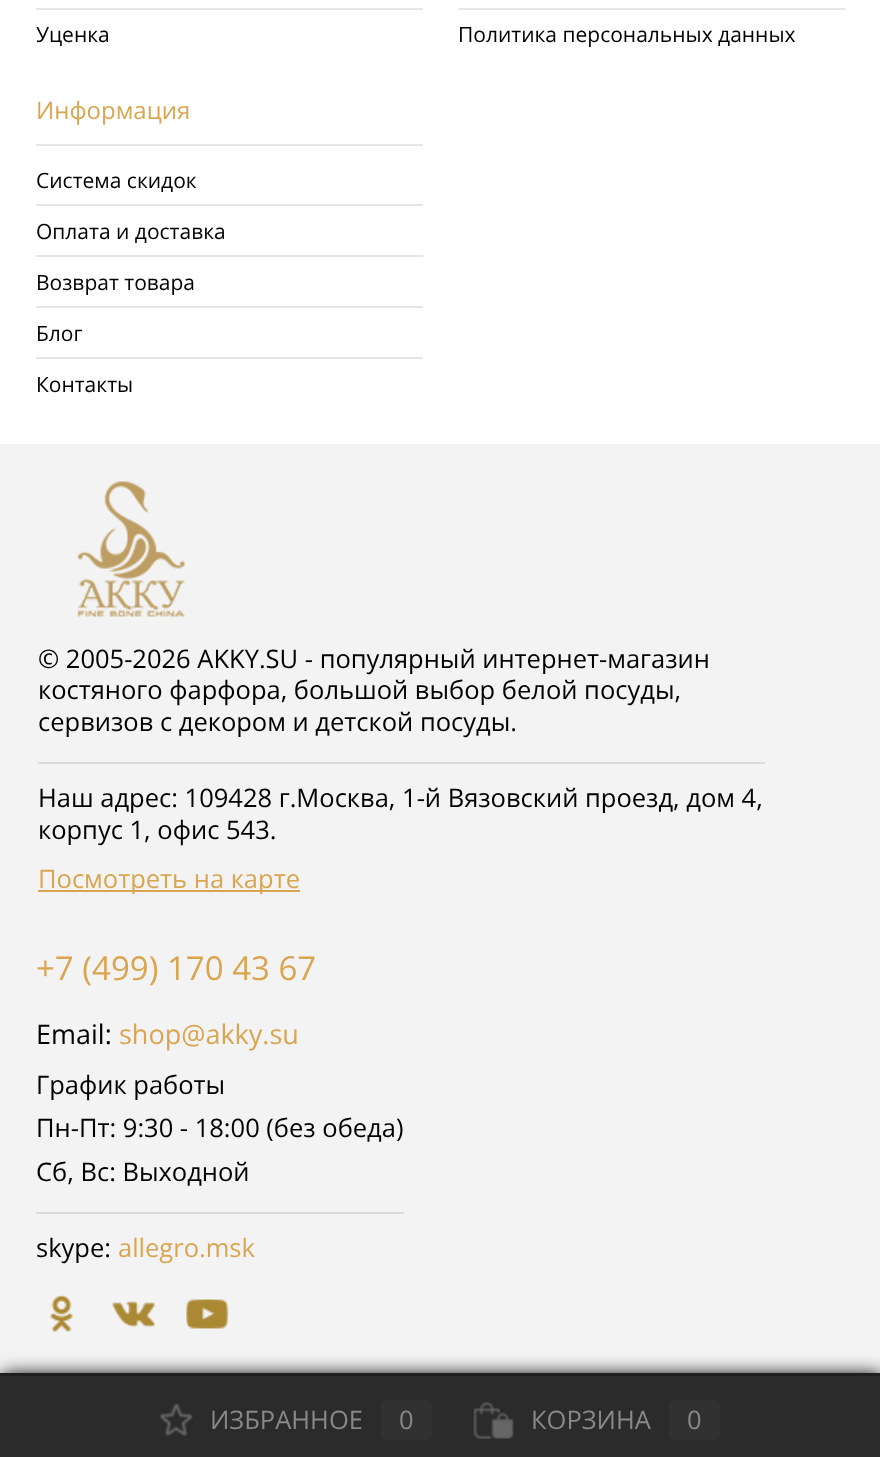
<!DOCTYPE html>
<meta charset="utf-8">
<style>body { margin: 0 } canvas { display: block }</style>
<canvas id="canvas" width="880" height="1457"></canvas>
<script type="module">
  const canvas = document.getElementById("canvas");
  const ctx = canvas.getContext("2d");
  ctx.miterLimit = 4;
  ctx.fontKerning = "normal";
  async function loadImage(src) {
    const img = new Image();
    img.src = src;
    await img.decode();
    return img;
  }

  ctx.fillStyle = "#ffffff";
  ctx.fillRect(0, 0, 880, 1457);
  ctx.fillStyle = "#e6e6e6";
  ctx.fillRect(36, 8, 387, 2);
  ctx.font = "21px Open Sans";
  ctx.fillStyle = "#000000";
  ctx.fillText("Уценка", 36, 42);
  ctx.fillStyle = "#e6e6e6";
  ctx.fillRect(459, 8, 386, 2);
  ctx.fillStyle = "#000000";
  ctx.fillText("Политика персональных данных", 458, 42);
  ctx.fillStyle = "#e6e6e6";
  ctx.fillRect(36, 144, 387, 2);
  ctx.font = "24px Open Sans";
  ctx.fillStyle = "#daa550";
  ctx.fillText("Информация", 36, 119);
  ctx.font = "21px Open Sans";
  ctx.fillStyle = "#000000";
  ctx.fillText("Система скидок", 36, 188);
  ctx.fillStyle = "#e6e6e6";
  ctx.fillRect(36, 204, 387, 2);
  ctx.fillStyle = "#000000";
  ctx.fillText("Оплата и доставка", 36, 239);
  ctx.fillStyle = "#e6e6e6";
  ctx.fillRect(36, 255, 387, 2);
  ctx.fillStyle = "#000000";
  ctx.fillText("Возврат товара", 36, 290);
  ctx.fillStyle = "#e6e6e6";
  ctx.fillRect(36, 306, 387, 2);
  ctx.fillStyle = "#000000";
  ctx.fillText("Блог", 36, 341);
  ctx.fillStyle = "#e6e6e6";
  ctx.fillRect(36, 357, 387, 2);
  ctx.fillStyle = "#000000";
  ctx.fillText("Контакты", 36, 392);
  ctx.fillStyle = "#f3f3f3";
  ctx.fillRect(0, 444, 880, 929);
  ctx.drawImage(await loadImage("img1.png"), 77, 481, 108, 136);
  ctx.font = "25.5px Open Sans";
  ctx.fillStyle = "#000000";
  ctx.fillText("© 2005-2026 AKKY.SU - популярный интернет-магазин", 38, 668);
  ctx.fillText("костяного фарфора, большой выбор белой посуды,", 38, 699);
  ctx.fillText("сервизов с декором и детской посуды.", 38, 731);
  ctx.fillStyle = "#dbdbdb";
  ctx.fillRect(38, 762, 727, 2);
  ctx.fillStyle = "#000000";
  ctx.fillText("Наш адрес: 109428 г.Москва, 1-й Вязовский проезд, дом 4,", 38, 807);
  ctx.fillText("корпус 1, офис 543.", 38, 839);
  ctx.fillStyle = "#daa550";
  ctx.fillRect(38, 890, 262, 2);
  ctx.fillText("Посмотреть на карте", 38, 888);
  ctx.font = "33px Open Sans";
  ctx.fillText("+7 (499) 170 43 67", 36, 980);
  ctx.font = "27px Open Sans";
  ctx.fillStyle = "#000000";
  ctx.fillText("Email:", 36, 1044);
  ctx.fillStyle = "#daa550";
  ctx.fillText("shop@akky.su", 119, 1044);
  ctx.font = "25.5px Open Sans";
  ctx.fillStyle = "#000000";
  ctx.fillText("График работы", 36, 1094);
  ctx.fillText("Пн-Пт: 9:30 - 18:00 (без обеда)", 36, 1137);
  ctx.fillText("Сб, Вс: Выходной", 36, 1181);
  ctx.fillStyle = "#dbdbdb";
  ctx.fillRect(36, 1212, 368, 2);
  ctx.fillStyle = "#000000";
  ctx.fillText("skype:", 36, 1257);
  ctx.fillStyle = "#daa550";
  ctx.fillText("allegro.msk", 118, 1257);
  ctx.drawImage(await loadImage("img2.png"), 50, 1294, 23, 38);
  ctx.drawImage(await loadImage("img3.png"), 112, 1301, 43, 27);
  ctx.drawImage(await loadImage("img4.png"), 186, 1299, 43, 30);
  ctx.fillStyle = "#000000";
  ctx.filter = "blur(9px)";
  ctx.beginPath();
  ctx.rect(2, 1374, 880, 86);
  ctx.fill();
  ctx.filter = "none";
  ctx.fillStyle = "#2b2b2b";
  ctx.fillRect(0, 1376, 880, 81);
  ctx.fillStyle = "#202020";
  ctx.fillRect(0, 1373, 880, 3);
  ctx.drawImage(await loadImage("img5.png"), 160, 1403, 33, 34);
  ctx.fillStyle = "#888888";
  ctx.fillText("ИЗБРАННОЕ", 210, 1429);
  ctx.fillStyle = "#313131";
  ctx.beginPath();
  ctx.roundRect(381, 1400, 51, 40, 6);
  ctx.fill();
  ctx.fillStyle = "#888888";
  ctx.fillText("0", 399, 1429);
  ctx.drawImage(await loadImage("img6.png"), 473, 1402, 41, 37);
  ctx.fillText("КОРЗИНА", 531, 1429);
  ctx.fillStyle = "#313131";
  ctx.beginPath();
  ctx.roundRect(669, 1400, 51, 40, 6);
  ctx.fill();
  ctx.fillStyle = "#888888";
  ctx.fillText("0", 687, 1429);
</script>
